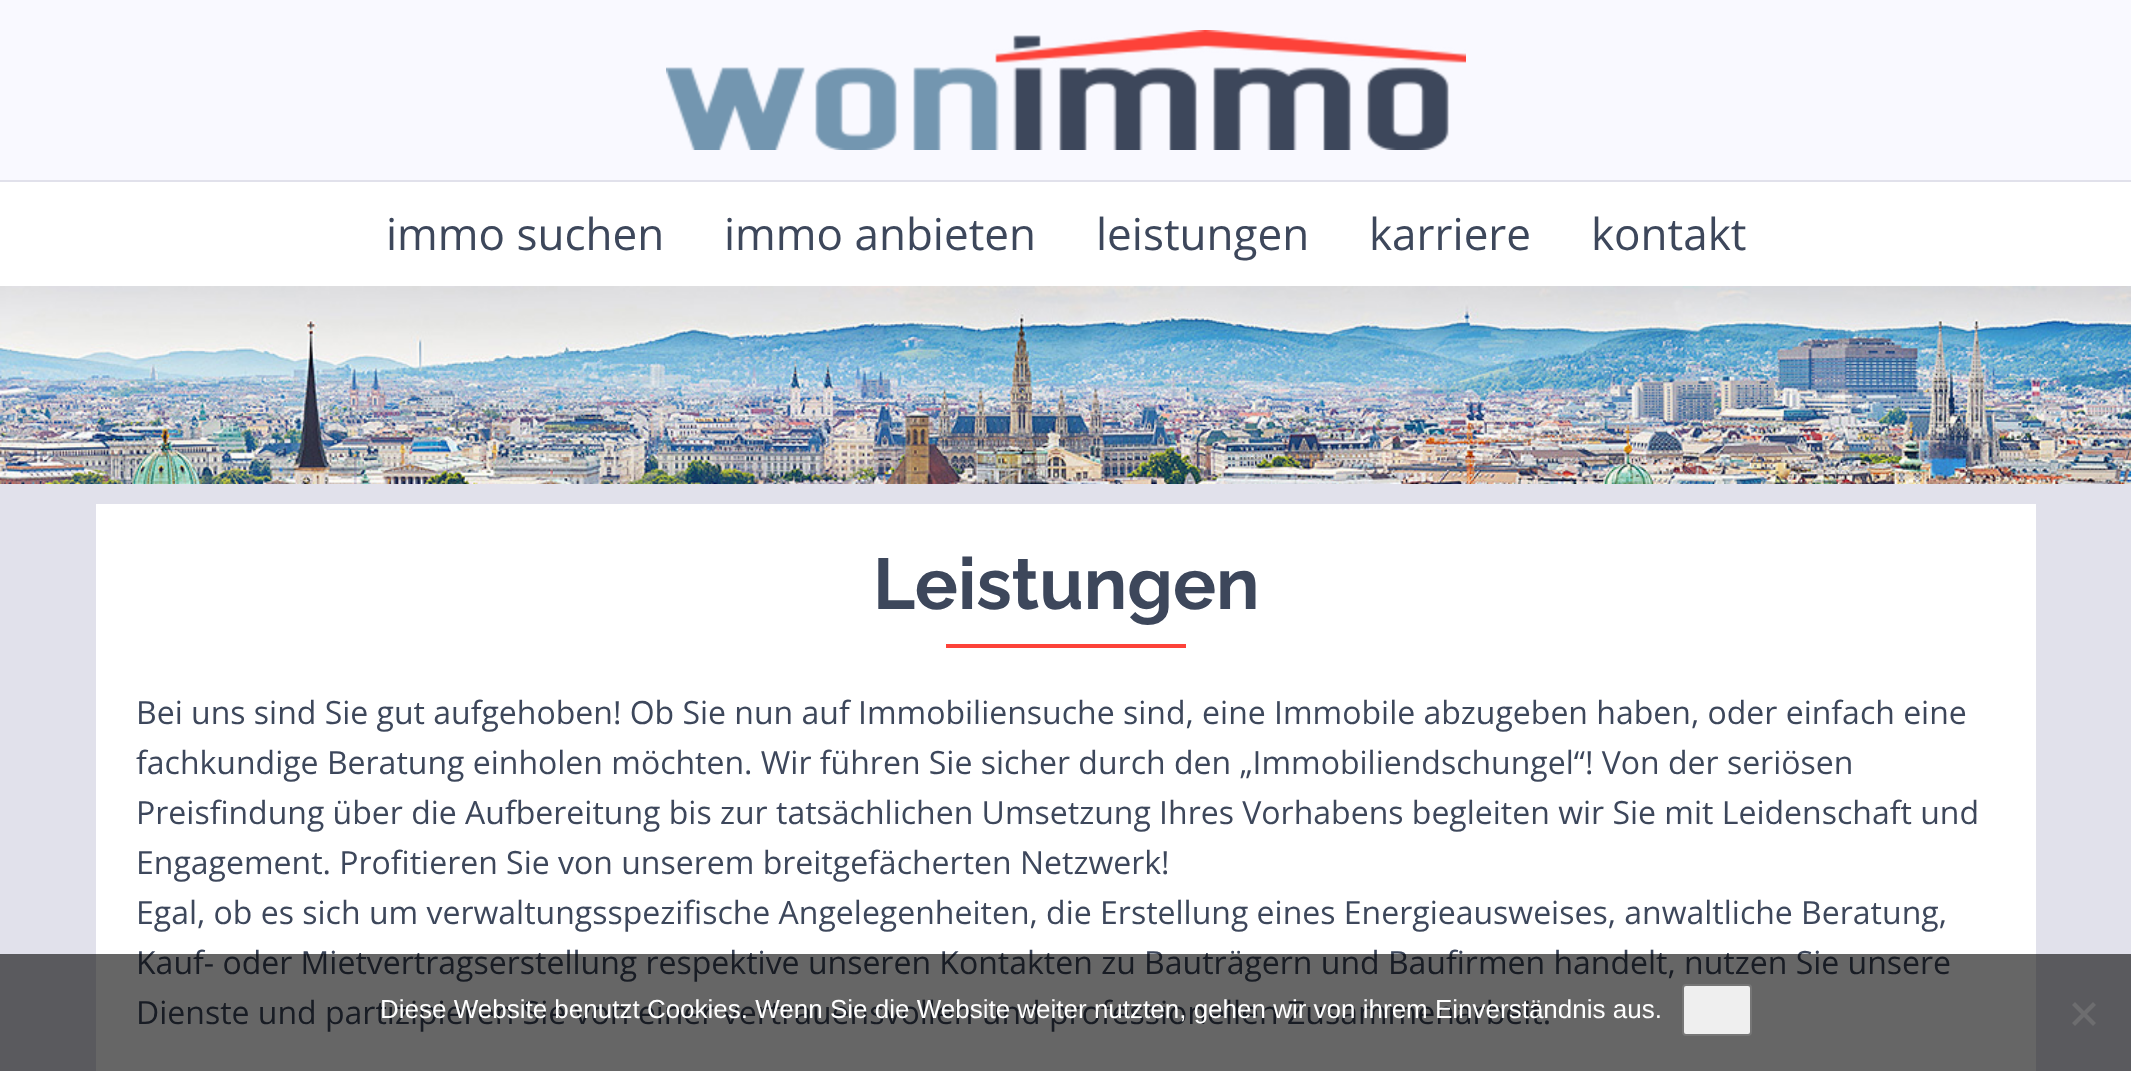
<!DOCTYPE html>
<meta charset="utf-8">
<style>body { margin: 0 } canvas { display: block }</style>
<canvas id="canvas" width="2131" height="1071"></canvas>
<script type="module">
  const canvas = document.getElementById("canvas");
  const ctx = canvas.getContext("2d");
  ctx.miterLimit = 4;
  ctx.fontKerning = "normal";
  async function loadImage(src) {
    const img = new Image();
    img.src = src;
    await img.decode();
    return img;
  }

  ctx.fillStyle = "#e1e1eb";
  ctx.fillRect(0, 0, 2131, 1071);
  ctx.fillStyle = "#f9f9ff";
  ctx.fillRect(0, 0, 2131, 180);
  ctx.drawImage(await loadImage("img1.png"), 666, 30, 800, 120);
  ctx.fillStyle = "#ffffff";
  ctx.fillRect(0, 182, 2131, 104);
  ctx.font = "44px Open Sans";
  ctx.fillStyle = "#3d475b";
  ctx.fillText("immo suchen", 386, 250);
  ctx.fillText("immo anbieten", 724, 250);
  ctx.fillText("leistungen", 1096, 250);
  ctx.fillText("karriere", 1369, 250);
  ctx.fillText("kontakt", 1591, 250);
  ctx.drawImage(await loadImage("img2.png"), 0, 286, 2131, 198);
  ctx.fillStyle = "#ffffff";
  ctx.fillRect(96, 504, 1940, 567);
  ctx.font = "bold 72px Raleway";
  ctx.fillStyle = "#3d475b";
  ctx.fillText("Leistungen", 873, 609);
  ctx.fillStyle = "#fd4239";
  ctx.fillRect(946, 644, 240, 4);
  ctx.font = "32px Open Sans";
  ctx.fillStyle = "#3d475b";
  ctx.fillText("Bei uns sind Sie gut aufgehoben! Ob Sie nun auf Immobiliensuche sind, eine Immobile abzugeben haben, oder einfach eine", 136, 724);
  ctx.fillText("fachkundige Beratung einholen möchten. Wir führen Sie sicher durch den „Immobiliendschungel“! Von der seriösen", 136, 774);
  ctx.fillText("Preisfindung über die Aufbereitung bis zur tatsächlichen Umsetzung Ihres Vorhabens begleiten wir Sie mit Leidenschaft und", 136, 824);
  ctx.fillText("Engagement. Profitieren Sie von unserem breitgefächerten Netzwerk!", 136, 874);
  ctx.fillText("Egal, ob es sich um verwaltungsspezifische Angelegenheiten, die Erstellung eines Energieausweises, anwaltliche Beratung,", 136, 924);
  ctx.fillText("Kauf- oder Mietvertragserstellung respektive unseren Kontakten zu Bauträgern und Baufirmen handelt, nutzen Sie unsere", 136, 974);
  ctx.fillText("Dienste und partizipieren Sie von einer vertrauensvollen und professionellen Zusammenarbeit.", 136, 1024);
  ctx.fillStyle = "rgba(0, 0, 0, 0.6)";
  ctx.fillRect(0, 954, 2131, 117);
  ctx.font = "26px Liberation Sans";
  ctx.fillStyle = "#ffffff";
  ctx.fillText("Diese Website benutzt Cookies. Wenn Sie die Website weiter nutzten, gehen wir von ihrem Einverständnis aus.", 380, 1018);
  ctx.fillStyle = "#efefef";
  ctx.beginPath();
  ctx.roundRect(1683, 985, 68, 50, 3);
  ctx.fill();
  ctx.strokeStyle = "#767676";
  ctx.lineWidth = 2;
  ctx.stroke();
  ctx.fillStyle = "#6d6d6f";
  ctx.beginPath();
  ctx.moveTo(2093, 1002);
  ctx.lineTo(2096, 1005);
  ctx.lineTo(2075, 1026);
  ctx.lineTo(2072, 1023);
  ctx.closePath();
  ctx.fill();
  ctx.beginPath();
  ctx.moveTo(2072, 1005);
  ctx.lineTo(2075, 1002);
  ctx.lineTo(2096, 1023);
  ctx.lineTo(2093, 1026);
  ctx.closePath();
  ctx.fill();
</script>
